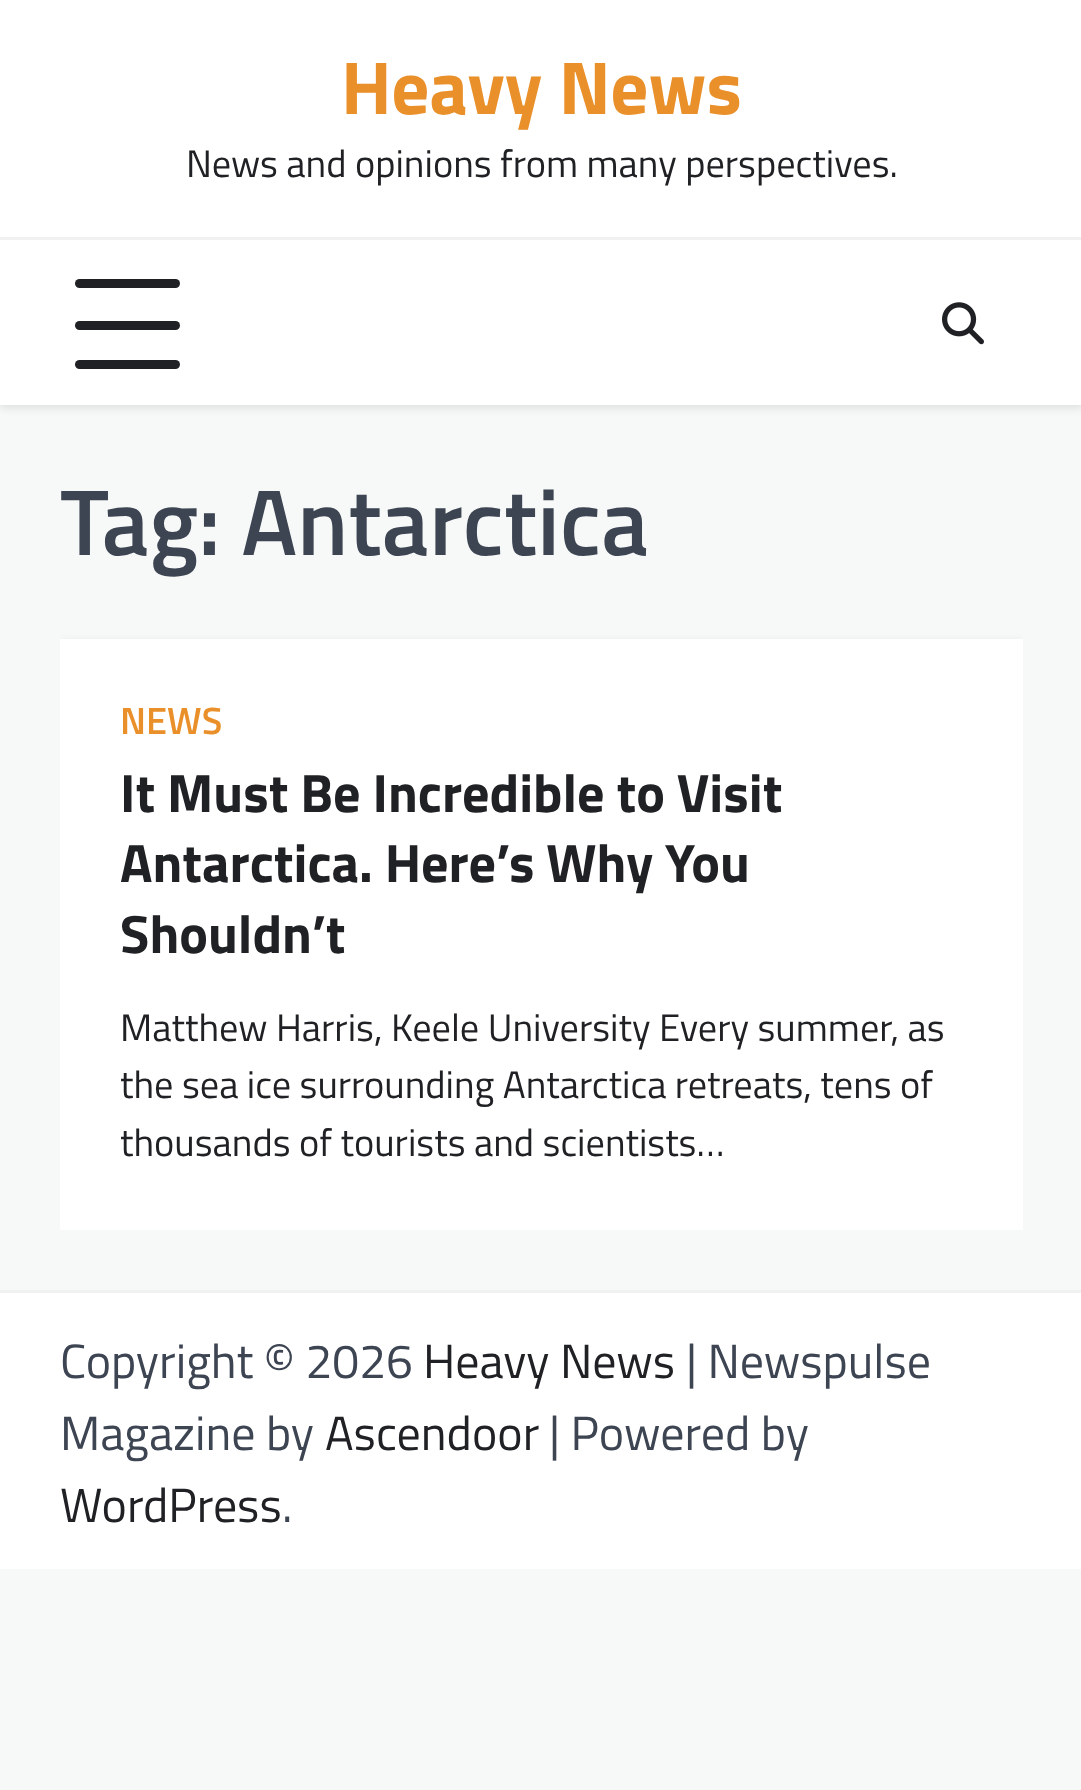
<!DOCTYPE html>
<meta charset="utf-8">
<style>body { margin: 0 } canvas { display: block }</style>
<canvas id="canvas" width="1081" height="1790"></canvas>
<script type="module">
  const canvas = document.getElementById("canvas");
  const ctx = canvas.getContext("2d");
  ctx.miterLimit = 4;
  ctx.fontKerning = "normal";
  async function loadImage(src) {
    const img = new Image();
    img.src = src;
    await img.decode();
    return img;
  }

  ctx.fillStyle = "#f7f9f8";
  ctx.fillRect(0, 0, 1081, 1790);
  ctx.fillStyle = "rgba(0, 0, 0, 0.1)";
  ctx.filter = "blur(4.5px)";
  ctx.beginPath();
  ctx.rect(0, 3, 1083, 405);
  ctx.fill();
  ctx.filter = "none";
  ctx.fillStyle = "#ffffff";
  ctx.fillRect(0, 0, 1081, 237);
  ctx.font = "bold 75px Titillium Web";
  ctx.fillStyle = "#ea902a";
  ctx.fillText("Heavy News", 341, 114);
  ctx.font = "38.4px Titillium Web";
  ctx.fillStyle = "#202124";
  ctx.fillText("News and opinions from many perspectives.", 186, 177);
  ctx.fillStyle = "#ffffff";
  ctx.fillRect(0, 240, 1081, 165);
  ctx.fillStyle = "#f1f1f1";
  ctx.fillRect(0, 237, 1081, 3);
  ctx.fillStyle = "#202124";
  ctx.beginPath();
  ctx.roundRect(75, 279, 105, 9, 4.5);
  ctx.fill();
  ctx.beginPath();
  ctx.roundRect(75, 321, 105, 9, 4.5);
  ctx.fill();
  ctx.beginPath();
  ctx.roundRect(75, 360, 105, 9, 4.5);
  ctx.fill();
  ctx.drawImage(await loadImage("img1.png"), 942, 302, 42, 43);
  ctx.font = "600 93.5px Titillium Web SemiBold";
  ctx.fillStyle = "#3d4452";
  ctx.fillText("Tag: Antarctica", 60, 555);
  ctx.save();
  ctx.beginPath();
  ctx.rect(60, 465, 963, 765);
  ctx.clip();
  ctx.fillStyle = "rgba(0, 0, 0, 0.1)";
  ctx.filter = "blur(4.5px)";
  ctx.beginPath();
  ctx.rect(60, 642, 963, 591);
  ctx.fill();
  ctx.filter = "none";
  ctx.restore();
  ctx.fillStyle = "#ffffff";
  ctx.fillRect(60, 639, 963, 591);
  ctx.font = "600 38px Titillium Web SemiBold";
  ctx.fillStyle = "#ea902a";
  ctx.fillText("NEWS", 120, 734);
  ctx.font = "bold 54px Titillium Web";
  ctx.fillStyle = "#202124";
  ctx.fillText("It Must Be Incredible to Visit", 120, 812);
  ctx.fillText("Antarctica. Here’s Why You", 120, 882);
  ctx.fillText("Shouldn’t", 120, 953);
  ctx.font = "38.4px Titillium Web";
  ctx.fillText("Matthew Harris, Keele University Every summer, as", 120, 1041);
  ctx.fillText("the sea ice surrounding Antarctica retreats, tens of", 120, 1098);
  ctx.fillText("thousands of tourists and scientists…", 120, 1156);
  ctx.fillStyle = "#ffffff";
  ctx.fillRect(0, 1293, 1081, 276);
  ctx.fillStyle = "#f1f1f1";
  ctx.fillRect(0, 1290, 1081, 3);
  ctx.font = "48px Titillium Web";
  ctx.fillStyle = "#3d4452";
  ctx.fillText("Copyright © 2026", 60, 1378);
  ctx.fillStyle = "#202124";
  ctx.fillText("Heavy News", 423, 1378);
  ctx.fillStyle = "#3d4452";
  ctx.fillText("| Newspulse", 686, 1378);
  ctx.fillText("Magazine by", 60, 1450);
  ctx.fillStyle = "#202124";
  ctx.fillText("Ascendoor", 325, 1450);
  ctx.fillStyle = "#3d4452";
  ctx.fillText("| Powered by", 549, 1450);
  ctx.fillStyle = "#202124";
  ctx.fillText("WordPress", 60, 1522);
  ctx.fillStyle = "#3d4452";
  ctx.fillText(".", 282, 1522);
</script>
